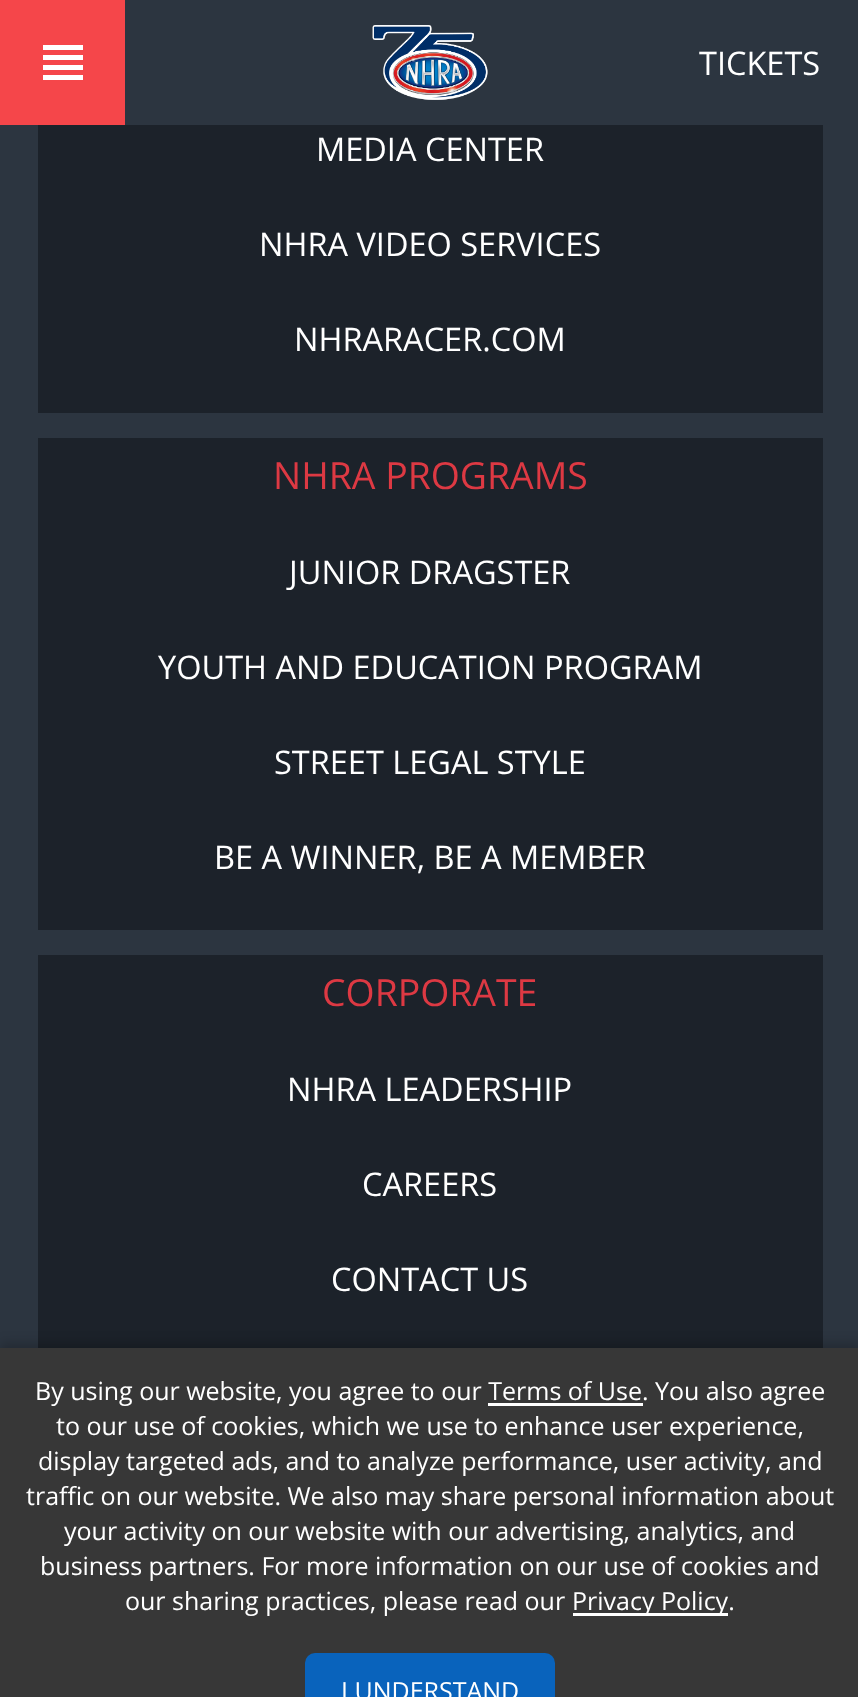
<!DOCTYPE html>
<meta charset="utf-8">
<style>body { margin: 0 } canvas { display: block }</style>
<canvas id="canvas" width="858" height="1697"></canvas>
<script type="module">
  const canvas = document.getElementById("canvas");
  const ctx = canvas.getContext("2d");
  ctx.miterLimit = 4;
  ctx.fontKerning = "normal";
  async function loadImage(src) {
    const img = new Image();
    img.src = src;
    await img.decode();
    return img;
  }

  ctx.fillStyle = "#2c3540";
  ctx.fillRect(0, 0, 858, 1697);
  ctx.fillStyle = "#f5464a";
  ctx.fillRect(0, 0, 125, 125);
  ctx.fillStyle = "#ffffff";
  ctx.fillRect(43, 45, 40, 5);
  ctx.fillRect(43, 55, 40, 5);
  ctx.fillRect(43, 65, 40, 5);
  ctx.fillRect(43, 75, 40, 5);
  ctx.drawImage(await loadImage("img1.png"), 372, 25, 116, 75);
  ctx.font = "32.5px Open Sans";
  ctx.fillText("TICKETS", 699, 75);
  ctx.fillStyle = "#1c222a";
  ctx.fillRect(38, 125, 785, 288);
  ctx.fillStyle = "#ffffff";
  ctx.fillText("MEDIA CENTER", 316, 161);
  ctx.fillText("NHRA VIDEO SERVICES", 259, 256);
  ctx.fillText("NHRARACER.COM", 294, 351);
  ctx.fillStyle = "#1c222a";
  ctx.fillRect(38, 438, 785, 492);
  ctx.font = "37.4px Open Sans";
  ctx.fillStyle = "#dd3943";
  ctx.fillText("NHRA PROGRAMS", 273, 489);
  ctx.font = "32.5px Open Sans";
  ctx.fillStyle = "#ffffff";
  ctx.fillText("JUNIOR DRAGSTER", 289, 584);
  ctx.fillText("YOUTH AND EDUCATION PROGRAM", 158, 679);
  ctx.fillText("STREET LEGAL STYLE", 274, 774);
  ctx.fillText("BE A WINNER, BE A MEMBER", 214, 869);
  ctx.fillStyle = "#1c222a";
  ctx.fillRect(38, 955, 785, 393);
  ctx.font = "37.4px Open Sans";
  ctx.fillStyle = "#dd3943";
  ctx.fillText("CORPORATE", 322, 1006);
  ctx.font = "32.5px Open Sans";
  ctx.fillStyle = "#ffffff";
  ctx.fillText("NHRA LEADERSHIP", 287, 1101);
  ctx.fillText("CAREERS", 362, 1196);
  ctx.fillText("CONTACT US", 331, 1291);
  ctx.fillStyle = "rgba(0, 0, 0, 0.2)";
  ctx.filter = "blur(6px)";
  ctx.beginPath();
  ctx.rect(0, 1343, 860, 350);
  ctx.fill();
  ctx.filter = "none";
  ctx.fillStyle = "#373737";
  ctx.fillRect(0, 1348, 858, 349);
  ctx.font = "25px Open Sans";
  ctx.fillStyle = "#ffffff";
  ctx.fillText("By using our website, you agree to our Terms of Use. You also agree", 35, 1400);
  ctx.fillRect(488, 1403, 155, 3);
  ctx.fillText("to our use of cookies, which we use to enhance user experience,", 56, 1435);
  ctx.fillText("display targeted ads, and to analyze performance, user activity, and", 38, 1470);
  ctx.fillText("traffic on our website. We also may share personal information about", 26, 1505);
  ctx.fillText("your activity on our website with our advertising, analytics, and", 64, 1540);
  ctx.fillText("business partners. For more information on our use of cookies and", 40, 1575);
  ctx.fillText("our sharing practices, please read our", 125, 1610);
  ctx.fillRect(573, 1613, 155, 3);
  ctx.fillText("Privacy Policy.", 572, 1610);
  ctx.fillStyle = "#0963bc";
  ctx.beginPath();
  ctx.roundRect(305, 1653, 250, 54, 10);
  ctx.fill();
  ctx.fillStyle = "#ffffff";
  ctx.fillText("I UNDERSTAND", 341, 1700);
</script>
